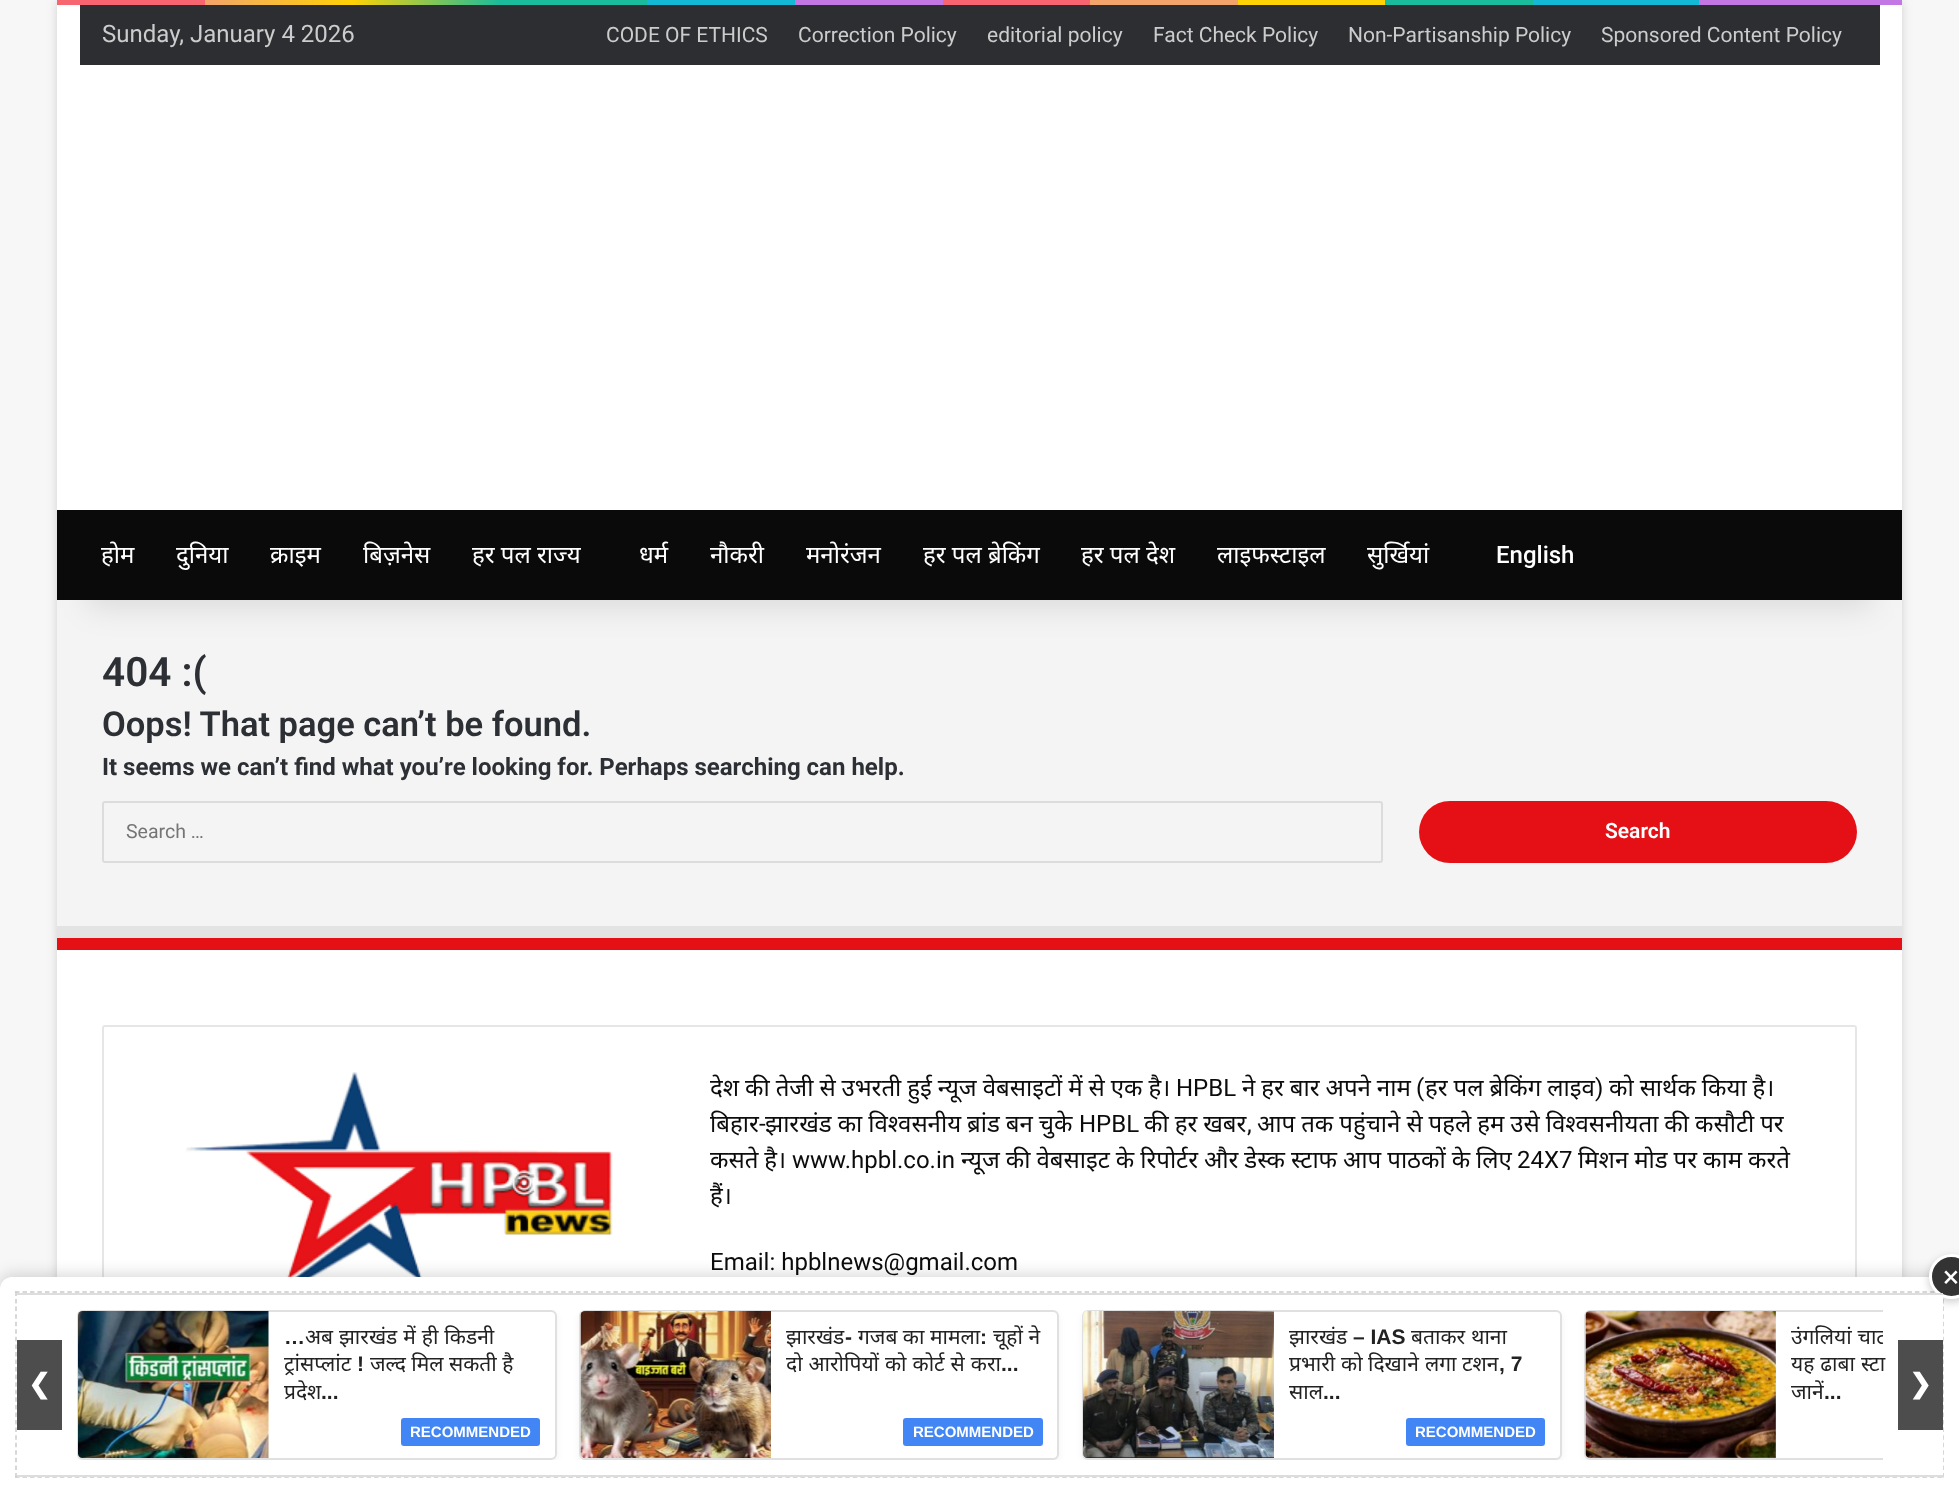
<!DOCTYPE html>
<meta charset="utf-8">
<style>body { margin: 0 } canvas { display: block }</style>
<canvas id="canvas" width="1959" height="1492"></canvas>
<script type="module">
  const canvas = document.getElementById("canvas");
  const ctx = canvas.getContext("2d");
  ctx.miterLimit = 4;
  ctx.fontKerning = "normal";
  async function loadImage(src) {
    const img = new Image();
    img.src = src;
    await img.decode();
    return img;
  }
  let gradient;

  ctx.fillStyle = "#f7f7f7";
  ctx.fillRect(0, 0, 1959, 1492);
  ctx.fillStyle = "rgba(171, 171, 171, 0.5)";
  ctx.filter = "blur(5px)";
  ctx.beginPath();
  ctx.rect(57, 2, 1845, 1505);
  ctx.fill();
  ctx.filter = "none";
  ctx.fillStyle = "#f4f4f4";
  ctx.fillRect(57, 600, 1845, 326);
  gradient = ctx.createLinearGradient(57, 2.3, 1902, 2.2);
  gradient.addColorStop(0, "#f76570");
  gradient.addColorStop(0.08, "#f76570");
  gradient.addColorStop(0.08, "#f3a46b");
  gradient.addColorStop(0.16, "#ffd205");
  gradient.addColorStop(0.24, "#1bbc9b");
  gradient.addColorStop(0.32, "#1bbc9b");
  gradient.addColorStop(0.32, "#14b9d5");
  gradient.addColorStop(0.4, "#14b9d5");
  gradient.addColorStop(0.4, "#c377e4");
  gradient.addColorStop(0.48, "#c377e4");
  gradient.addColorStop(0.48, "#f76570");
  gradient.addColorStop(0.56, "#f76570");
  gradient.addColorStop(0.56, "#f3a46b");
  gradient.addColorStop(0.64, "#f3a46b");
  gradient.addColorStop(0.64, "#ffd205");
  gradient.addColorStop(0.72, "#ffd205");
  gradient.addColorStop(0.72, "#1bbc9b");
  gradient.addColorStop(0.8, "#1bbc9b");
  gradient.addColorStop(0.8, "#14b9d5");
  gradient.addColorStop(0.89, "#14b9d5");
  gradient.addColorStop(0.89, "#c377e4");
  gradient.addColorStop(1, "#c377e4");
  ctx.fillStyle = gradient;
  ctx.fillRect(57, 0, 1845, 5);
  ctx.fillStyle = "rgba(0, 0, 0, 0.1)";
  ctx.filter = "blur(15px)";
  ctx.beginPath();
  ctx.rect(87, 72, 1785, 536);
  ctx.fill();
  ctx.filter = "none";
  ctx.fillStyle = "#ffffff";
  ctx.fillRect(57, 5, 1845, 505);
  ctx.fillStyle = "#2c2e32";
  ctx.fillRect(80, 5, 1800, 60);
  ctx.font = "24px Roboto";
  ctx.fillStyle = "#cccccc";
  ctx.fillText("Sunday, January 4 2026", 102, 42);
  ctx.font = "21px Roboto";
  ctx.fillText("CODE OF ETHICS", 606, 42);
  ctx.fillText("Correction Policy", 798, 42);
  ctx.fillText("editorial policy", 987, 42);
  ctx.fillText("Fact Check Policy", 1153, 42);
  ctx.fillText("Non-Partisanship Policy", 1348, 42);
  ctx.fillText("Sponsored Content Policy", 1601, 42);
  ctx.fillStyle = "#0a0a0a";
  ctx.fillRect(57, 510, 1845, 90);
  ctx.font = "24px Noto Sans";
  ctx.fillStyle = "#ffffff";
  ctx.fillText("होम", 101, 563);
  ctx.fillText("दुनिया", 176, 563);
  ctx.fillText("क्राइम", 270, 563);
  ctx.fillText("बिज़नेस", 363, 563);
  ctx.fillText("हर पल राज्य", 472, 563);
  ctx.fillText("धर्म", 639, 563);
  ctx.fillText("नौकरी", 710, 563);
  ctx.fillText("मनोरंजन", 806, 563);
  ctx.fillText("हर पल ब्रेकिंग", 923, 563);
  ctx.fillText("हर पल देश", 1081, 563);
  ctx.fillText("लाइफस्टाइल", 1217, 563);
  ctx.fillText("सुर्खियां", 1367, 563);
  ctx.font = "500 24px Roboto";
  ctx.fillText("English", 1496, 563);
  ctx.font = "600 40.5px Roboto";
  ctx.fillStyle = "#2c2f34";
  ctx.fillText("404 :(", 102, 686);
  ctx.font = "600 34.5px Roboto";
  ctx.fillText("Oops! That page can’t be found.", 102, 736);
  ctx.font = "bold 24px Roboto";
  ctx.fillText("It seems we can’t find what you’re looking for. Perhaps searching can help.", 102, 775);
  ctx.beginPath();
  ctx.roundRect(103, 802, 1279, 60, 2);
  ctx.strokeStyle = "#dcdcdc";
  ctx.lineWidth = 2;
  ctx.stroke();
  ctx.font = "19.5px Roboto";
  ctx.fillStyle = "#757575";
  ctx.fillText("Search …", 126, 838);
  ctx.fillStyle = "#e51016";
  ctx.beginPath();
  ctx.roundRect(1419, 801, 438, 62, 31);
  ctx.fill();
  ctx.font = "600 21px Roboto";
  ctx.fillStyle = "#ffffff";
  ctx.fillText("Search", 1605, 838);
  ctx.fillRect(57, 950, 1845, 327);
  ctx.fillStyle = "#e3e3e3";
  ctx.fillRect(58, 926, 1843, 12);
  ctx.fillStyle = "#e51016";
  ctx.fillRect(57, 938, 1845, 12);
  ctx.beginPath();
  ctx.roundRect(103, 1026, 1753, 337, 2);
  ctx.strokeStyle = "#e6e6e6";
  ctx.stroke();
  ctx.drawImage(await loadImage("img1.png"), 186, 1072, 427, 205);
  ctx.save();
  ctx.beginPath();
  ctx.rect(710, 1071, 1108, 210);
  ctx.clip();
  ctx.wordSpacing = "-0.25px";
  ctx.font = "24px Noto Sans";
  ctx.fillStyle = "#0c0c0c";
  ctx.fillText("देश की तेजी से उभरती हुई न्यूज वेबसाइटों में से एक है।", 710, 1096);
  ctx.restore();
  ctx.font = "24px Roboto";
  ctx.fillStyle = "#0c0c0c";
  ctx.fillText("HPBL", 1176, 1096);
  ctx.wordSpacing = "-0.25px";
  ctx.font = "24px Noto Sans";
  ctx.fillText("ने हर बार अपने नाम", 1242, 1096);
  ctx.wordSpacing = "0px";
  ctx.font = "24px Roboto";
  ctx.fillText("(", 1416, 1096);
  ctx.wordSpacing = "-0.25px";
  ctx.font = "24px Noto Sans";
  ctx.fillText("हर पल ब्रेकिंग लाइव", 1425, 1096);
  ctx.wordSpacing = "0px";
  ctx.font = "24px Roboto";
  ctx.fillText(")", 1595, 1096);
  ctx.wordSpacing = "-0.25px";
  ctx.font = "24px Noto Sans";
  ctx.fillText("को सार्थक किया है।", 1609, 1096);
  ctx.wordSpacing = "0px";
  ctx.fillText("बिहार", 710, 1132);
  ctx.font = "24px Roboto";
  ctx.fillText("-", 759, 1132);
  ctx.wordSpacing = "-0.25px";
  ctx.font = "24px Noto Sans";
  ctx.fillText("झारखंड का विश्वसनीय ब्रांड बन चुके", 765, 1132);
  ctx.wordSpacing = "0px";
  ctx.font = "24px Roboto";
  ctx.fillText("HPBL", 1079, 1132);
  ctx.wordSpacing = "-0.25px";
  ctx.font = "24px Noto Sans";
  ctx.fillText("की हर खबर", 1144, 1132);
  ctx.fillText("आप तक पहुंचाने से पहले हम उसे विश्वसनीयता की कसौटी पर", 1257, 1132);
  ctx.wordSpacing = "0px";
  ctx.font = "24px Roboto";
  ctx.fillText(",", 1247, 1132);
  ctx.wordSpacing = "-0.25px";
  ctx.font = "24px Noto Sans";
  ctx.fillText("कसते है।", 710, 1168);
  ctx.wordSpacing = "0px";
  ctx.font = "24px Roboto";
  ctx.fillText("www.hpbl.co.in", 792, 1168);
  ctx.wordSpacing = "-0.25px";
  ctx.font = "24px Noto Sans";
  ctx.fillText("न्यूज की वेबसाइट के रिपोर्टर और डेस्क स्टाफ आप पाठकों के लिए", 961, 1168);
  ctx.wordSpacing = "0px";
  ctx.font = "24px Roboto";
  ctx.fillText("24X7", 1517, 1168);
  ctx.wordSpacing = "-0.25px";
  ctx.font = "24px Noto Sans";
  ctx.fillText("मिशन मोड पर काम करते", 1578, 1168);
  ctx.save();
  ctx.beginPath();
  ctx.rect(710, 1071, 1108, 210);
  ctx.clip();
  ctx.wordSpacing = "0px";
  ctx.fillText("हैं।", 710, 1204);
  ctx.restore();
  ctx.wordSpacing = "0px";
  ctx.font = "24px Roboto";
  ctx.fillText("Email: hpblnews@gmail.com", 710, 1270);
  ctx.fillStyle = "rgba(0, 0, 0, 0.15)";
  ctx.filter = "blur(7.5px)";
  ctx.beginPath();
  ctx.roundRect(0, 1274, 1959, 216, 12);
  ctx.fill();
  ctx.filter = "none";
  ctx.fillStyle = "#ffffff";
  ctx.beginPath();
  ctx.moveTo(12, 1277);
  ctx.lineTo(1947, 1277);
  ctx.bezierCurveTo(1953.5, 1277, 1959, 1282.5, 1959, 1289);
  ctx.lineTo(1959, 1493);
  ctx.lineTo(0, 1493);
  ctx.lineTo(0, 1289);
  ctx.bezierCurveTo(0, 1282.5, 5.5, 1277, 12, 1277);
  ctx.closePath();
  ctx.fill();
  ctx.beginPath();
  ctx.moveTo(15, 1292);
  ctx.lineTo(1944, 1292);
  ctx.strokeStyle = "#cccccc";
  ctx.lineWidth = 1.5;
  ctx.setLineDash([4.5, 2.98]);
  ctx.stroke();
  ctx.beginPath();
  ctx.moveTo(1943, 1291.5);
  ctx.lineTo(1943, 1477.5);
  ctx.setLineDash([4.5, 3.06]);
  ctx.stroke();
  ctx.fillStyle = "rgba(0, 0, 0, 0.2)";
  ctx.filter = "blur(4px)";
  ctx.beginPath();
  ctx.roundRect(1929, 1257, 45, 45, 22.5);
  ctx.fill();
  ctx.filter = "none";
  ctx.fillStyle = "#333333";
  ctx.beginPath();
  ctx.arc(1951.5, 1276.5, 21, 0, Math.PI * 2);
  ctx.fill();
  ctx.strokeStyle = "#ffffff";
  ctx.lineWidth = 3;
  ctx.setLineDash([]);
  ctx.stroke();
  ctx.font = "30px Roboto";
  ctx.fillStyle = "#ffffff";
  ctx.fillText("×", 1943, 1287);
  ctx.beginPath();
  ctx.moveTo(15, 1477);
  ctx.lineTo(1944, 1477);
  ctx.strokeStyle = "#cccccc";
  ctx.lineWidth = 1.5;
  ctx.setLineDash([4.5, 2.98]);
  ctx.stroke();
  ctx.beginPath();
  ctx.moveTo(16, 1291.5);
  ctx.lineTo(16, 1477.5);
  ctx.setLineDash([4.5, 3.06]);
  ctx.stroke();
  ctx.fillRect(1928, 1295, 15, 180);
  ctx.fillStyle = "#dddddd";
  ctx.fillRect(17, 1293, 1926, 2);
  ctx.fillRect(17, 1475, 1926, 2);
  ctx.fillStyle = "#4d4d4d";
  ctx.fillRect(17, 1340, 45, 90);
  ctx.font = "bold 27px DejaVu Sans";
  ctx.fillStyle = "#ffffff";
  ctx.fillText("❮", 28, 1393);
  ctx.save();
  ctx.beginPath();
  ctx.rect(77, 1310, 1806, 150);
  ctx.clip();
  ctx.fillStyle = "rgba(0, 0, 0, 0.05)";
  ctx.filter = "blur(3px)";
  ctx.beginPath();
  ctx.roundRect(77, 1313, 480, 150, 6);
  ctx.fill();
  ctx.filter = "none";
  ctx.restore();
  ctx.beginPath();
  ctx.roundRect(78, 1311, 478, 148, 5);
  ctx.fill();
  ctx.strokeStyle = "#e0e0e0";
  ctx.lineWidth = 2;
  ctx.setLineDash([]);
  ctx.stroke();
  ctx.drawImage(await loadImage("img2.png"), 78, 1311, 191, 147);
  ctx.font = "bold 21px Liberation Sans";
  ctx.fillStyle = "#222222";
  ctx.fillText("…", 284, 1344);
  ctx.wordSpacing = "0.5px";
  ctx.font = "21px Noto Sans";
  ctx.fillText("अब झारखंड में ही किडनी", 305, 1344);
  ctx.save();
  ctx.beginPath();
  ctx.rect(284, 1323, 256, 83);
  ctx.clip();
  ctx.wordSpacing = "0px";
  ctx.fillText("ट्रांसप्लांट", 284, 1371);
  ctx.restore();
  ctx.wordSpacing = "0px";
  ctx.font = "bold 21px Liberation Sans";
  ctx.fillText("!", 357, 1371);
  ctx.font = "21px Noto Sans";
  ctx.fillText("जल्द मिल सकती है", 370, 1371);
  ctx.fillText("प्रदेश", 284, 1399);
  ctx.font = "bold 21px Liberation Sans";
  ctx.fillText("...", 321, 1399);
  ctx.fillStyle = "#4285f4";
  ctx.beginPath();
  ctx.roundRect(401, 1418, 139, 28, 3);
  ctx.fill();
  ctx.font = "bold 15px Liberation Sans";
  ctx.fillStyle = "#ffffff";
  ctx.fillText("RECOMMENDED", 410, 1437);
  ctx.save();
  ctx.beginPath();
  ctx.rect(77, 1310, 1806, 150);
  ctx.clip();
  ctx.fillStyle = "rgba(0, 0, 0, 0.05)";
  ctx.filter = "blur(3px)";
  ctx.beginPath();
  ctx.roundRect(579, 1313, 480, 150, 6);
  ctx.fill();
  ctx.filter = "none";
  ctx.restore();
  ctx.beginPath();
  ctx.roundRect(580, 1311, 478, 148, 5);
  ctx.fill();
  ctx.stroke();
  ctx.drawImage(await loadImage("img3.png"), 580, 1311, 191, 147);
  ctx.font = "21px Noto Sans";
  ctx.fillStyle = "#222222";
  ctx.fillText("झारखंड", 786, 1344);
  ctx.font = "bold 21px Liberation Sans";
  ctx.fillText("-", 845, 1344);
  ctx.font = "21px Noto Sans";
  ctx.fillText("गजब का मामला", 858, 1344);
  ctx.font = "bold 21px Liberation Sans";
  ctx.fillText(":", 980, 1344);
  ctx.font = "21px Noto Sans";
  ctx.fillText("चूहों ने", 993, 1344);
  ctx.save();
  ctx.beginPath();
  ctx.rect(786, 1323, 257, 54);
  ctx.clip();
  ctx.wordSpacing = "0.5px";
  ctx.fillText("दो आरोपियों को कोर्ट से करा", 786, 1371);
  ctx.restore();
  ctx.font = "bold 21px Liberation Sans";
  ctx.fillText("...", 1001, 1371);
  ctx.fillStyle = "#4285f4";
  ctx.beginPath();
  ctx.roundRect(903, 1418, 140, 28, 3);
  ctx.fill();
  ctx.font = "bold 15px Liberation Sans";
  ctx.fillStyle = "#ffffff";
  ctx.fillText("RECOMMENDED", 913, 1437);
  ctx.save();
  ctx.beginPath();
  ctx.rect(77, 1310, 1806, 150);
  ctx.clip();
  ctx.fillStyle = "rgba(0, 0, 0, 0.05)";
  ctx.filter = "blur(3px)";
  ctx.beginPath();
  ctx.roundRect(1082, 1313, 480, 150, 6);
  ctx.fill();
  ctx.filter = "none";
  ctx.restore();
  ctx.beginPath();
  ctx.roundRect(1083, 1311, 478, 148, 5);
  ctx.fill();
  ctx.stroke();
  ctx.drawImage(await loadImage("img4.png"), 1083, 1311, 191, 147);
  ctx.font = "21px Noto Sans";
  ctx.fillStyle = "#222222";
  ctx.fillText("झारखंड", 1289, 1344);
  ctx.font = "bold 21px Liberation Sans";
  ctx.fillText("– IAS", 1353, 1344);
  ctx.font = "21px Noto Sans";
  ctx.fillText("बताकर", 1411, 1344);
  ctx.fillText("थाना", 1471, 1344);
  ctx.fillText("प्रभारी", 1289, 1371);
  ctx.fillText("को", 1341, 1371);
  ctx.fillText("दिखाने", 1368, 1371);
  ctx.fillText("लगा", 1425, 1371);
  ctx.fillText("टशन", 1462, 1371);
  ctx.font = "bold 21px Liberation Sans";
  ctx.fillText(", 7", 1499, 1371);
  ctx.font = "21px Noto Sans";
  ctx.fillText("साल", 1289, 1399);
  ctx.font = "bold 21px Liberation Sans";
  ctx.fillText("...", 1323, 1399);
  ctx.fillStyle = "#4285f4";
  ctx.beginPath();
  ctx.roundRect(1406, 1418, 139, 28, 3);
  ctx.fill();
  ctx.font = "bold 15px Liberation Sans";
  ctx.fillStyle = "#ffffff";
  ctx.fillText("RECOMMENDED", 1415, 1437);
  ctx.save();
  ctx.beginPath();
  ctx.rect(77, 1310, 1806, 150);
  ctx.clip();
  ctx.fillStyle = "rgba(0, 0, 0, 0.05)";
  ctx.filter = "blur(3px)";
  ctx.beginPath();
  ctx.roundRect(1584, 1313, 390, 150, 6);
  ctx.fill();
  ctx.filter = "none";
  ctx.restore();
  ctx.beginPath();
  ctx.roundRect(1584, 1310, 299, 150, [6, 0, 0, 6]);
  ctx.fill();
  ctx.save();
  ctx.beginPath();
  ctx.rect(77, 1310, 1806, 150);
  ctx.clip();
  ctx.beginPath();
  ctx.roundRect(1585, 1311, 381, 148, 5);
  ctx.stroke();
  ctx.restore();
  ctx.drawImage(await loadImage("img5.png"), 1585, 1311, 191, 147);
  ctx.save();
  ctx.beginPath();
  ctx.rect(1791, 1323, 92, 83);
  ctx.clip();
  ctx.wordSpacing = "0.5px";
  ctx.font = "21px Noto Sans";
  ctx.fillStyle = "#222222";
  ctx.fillText("उंगलियां चाट", 1791, 1344);
  ctx.restore();
  ctx.wordSpacing = "0.5px";
  ctx.font = "21px Noto Sans";
  ctx.fillStyle = "#222222";
  ctx.fillText("यह ढाबा स्टा", 1791, 1371);
  ctx.wordSpacing = "0px";
  ctx.fillText("जानें", 1791, 1399);
  ctx.font = "bold 21px Liberation Sans";
  ctx.fillText("...", 1824, 1399);
  ctx.fillStyle = "#4d4d4d";
  ctx.fillRect(1898, 1340, 45, 90);
  ctx.font = "bold 27px DejaVu Sans";
  ctx.fillStyle = "#ffffff";
  ctx.fillText("❯", 1909, 1393);
</script>
